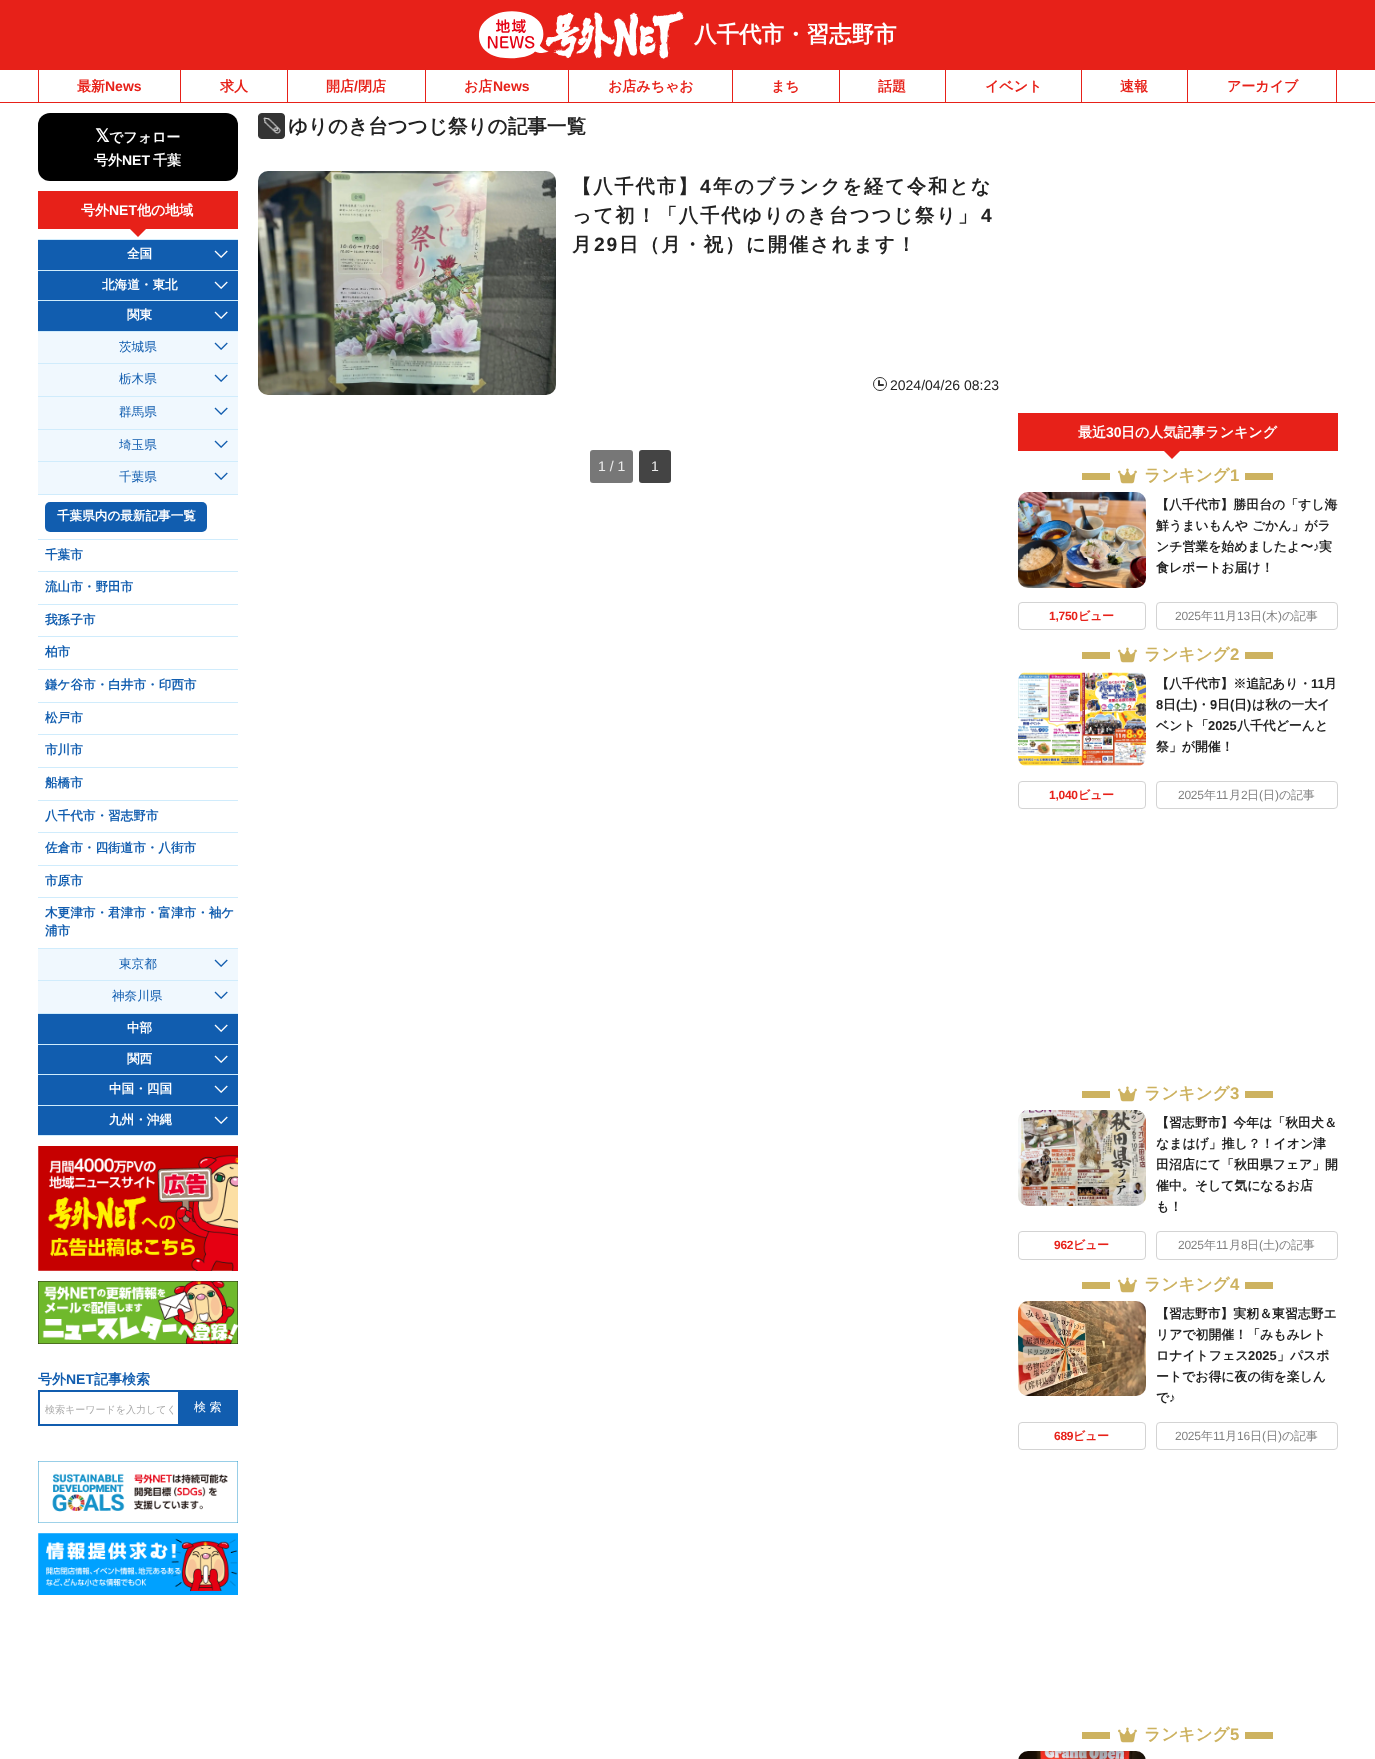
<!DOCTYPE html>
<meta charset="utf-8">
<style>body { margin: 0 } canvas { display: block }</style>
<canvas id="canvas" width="1375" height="1759"></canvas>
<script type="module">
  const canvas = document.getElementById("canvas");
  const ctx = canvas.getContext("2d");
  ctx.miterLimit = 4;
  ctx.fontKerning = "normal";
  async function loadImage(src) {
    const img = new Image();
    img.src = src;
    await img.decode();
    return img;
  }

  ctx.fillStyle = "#ffffff";
  ctx.fillRect(0, 0, 1375, 1759);
  ctx.fillStyle = "#e72119";
  ctx.fillRect(0, 0, 1375, 70);
  ctx.drawImage(await loadImage("img1.png"), 479, 11, 205, 48);
  ctx.font = "bold 22.5px WenQuanYi Zen Hei";
  ctx.fillStyle = "#ffffff";
  ctx.fillText("八千代市・習志野市", 694, 42);
  ctx.fillStyle = "#e72119";
  ctx.fillRect(0, 102, 1375, 1);
  ctx.fillRect(180, 70, 1, 32);
  ctx.fillRect(38, 70, 1, 32);
  ctx.font = "bold 14px WenQuanYi Zen Hei";
  ctx.fillText("最新", 77, 91);
  ctx.font = "bold 14px Liberation Sans";
  ctx.fillText("News", 105, 91);
  ctx.fillRect(287, 70, 1, 32);
  ctx.font = "bold 14px WenQuanYi Zen Hei";
  ctx.fillText("求人", 220, 91);
  ctx.fillRect(425, 70, 1, 32);
  ctx.fillText("開店", 326, 91);
  ctx.font = "bold 14px Liberation Sans";
  ctx.fillText("/", 354, 91);
  ctx.font = "bold 14px WenQuanYi Zen Hei";
  ctx.fillText("閉店", 358, 91);
  ctx.fillRect(568, 70, 1, 32);
  ctx.fillText("お店", 464, 91);
  ctx.font = "bold 14px Liberation Sans";
  ctx.fillText("News", 493, 91);
  ctx.fillRect(732, 70, 1, 32);
  ctx.font = "bold 14px WenQuanYi Zen Hei";
  ctx.fillText("お店みちゃお", 608, 91);
  ctx.fillRect(839, 70, 1, 32);
  ctx.fillText("まち", 771, 91);
  ctx.fillRect(945, 70, 1, 32);
  ctx.fillText("話題", 878, 91);
  ctx.fillRect(1081, 70, 1, 32);
  ctx.fillText("イベント", 985, 91);
  ctx.fillRect(1187, 70, 1, 32);
  ctx.fillText("速報", 1120, 91);
  ctx.fillRect(1336, 70, 1, 32);
  ctx.fillText("アーカイブ", 1227, 91);
  ctx.fillStyle = "#000000";
  ctx.beginPath();
  ctx.roundRect(38, 113, 200, 68, 12);
  ctx.fill();
  ctx.font = "bold 18px DejaVu Sans";
  ctx.fillStyle = "#ffffff";
  ctx.fillText("𝕏", 95, 142);
  ctx.font = "bold 14px WenQuanYi Zen Hei";
  ctx.fillText("でフォロー", 109, 142);
  ctx.fillText("号外", 94, 165);
  ctx.font = "bold 14px Liberation Sans";
  ctx.fillText("NET", 122, 165);
  ctx.font = "bold 14px WenQuanYi Zen Hei";
  ctx.fillText("千葉", 153, 165);
  ctx.fillStyle = "#e72119";
  ctx.fillRect(38, 191, 200, 38);
  ctx.fillStyle = "#ffffff";
  ctx.fillText("号外", 81, 215);
  ctx.font = "bold 14px Liberation Sans";
  ctx.fillText("NET", 109, 215);
  ctx.font = "bold 14px WenQuanYi Zen Hei";
  ctx.fillText("他の地域", 137, 215);
  ctx.fillStyle = "#e72119";
  ctx.beginPath();
  ctx.moveTo(128, 227);
  ctx.lineTo(148, 227);
  ctx.lineTo(138, 237);
  ctx.closePath();
  ctx.fill();
  ctx.fillStyle = "#d0ecfc";
  ctx.fillRect(38, 239, 200, 1);
  ctx.fillRect(38, 270, 200, 1);
  ctx.fillStyle = "#115daf";
  ctx.fillRect(38, 240, 200, 30);
  ctx.font = "bold 12.6px WenQuanYi Zen Hei";
  ctx.fillStyle = "#ffffff";
  ctx.fillText("全国", 127, 258);
  ctx.drawImage(await loadImage("img2.png"), 214, 250, 14, 8);
  ctx.fillStyle = "#d0ecfc";
  ctx.fillRect(38, 300, 200, 1);
  ctx.fillStyle = "#115daf";
  ctx.fillRect(38, 271, 200, 29);
  ctx.fillStyle = "#ffffff";
  ctx.fillText("北海道・東北", 102, 289);
  ctx.drawImage(await loadImage("img2.png"), 214, 281, 14, 8);
  ctx.fillStyle = "#d0ecfc";
  ctx.fillRect(38, 1013, 200, 1);
  ctx.fillStyle = "#115daf";
  ctx.fillRect(38, 301, 200, 30);
  ctx.fillStyle = "#ffffff";
  ctx.fillText("関東", 127, 319);
  ctx.drawImage(await loadImage("img2.png"), 214, 311, 14, 8);
  ctx.fillStyle = "#d0ecfc";
  ctx.fillRect(38, 331, 200, 1);
  ctx.fillStyle = "#f0f8fe";
  ctx.fillRect(38, 332, 200, 31);
  ctx.font = "500 12.6px WenQuanYi Zen Hei";
  ctx.fillStyle = "#115daf";
  ctx.fillText("茨城県", 119, 351);
  ctx.drawImage(await loadImage("img3.png"), 214, 342, 14, 8);
  ctx.fillStyle = "#d0ecfc";
  ctx.fillRect(38, 363, 200, 1);
  ctx.fillStyle = "#f0f8fe";
  ctx.fillRect(38, 364, 200, 32);
  ctx.fillStyle = "#115daf";
  ctx.fillText("栃木県", 119, 383);
  ctx.drawImage(await loadImage("img3.png"), 214, 374, 14, 8);
  ctx.fillStyle = "#d0ecfc";
  ctx.fillRect(38, 396, 200, 1);
  ctx.fillStyle = "#f0f8fe";
  ctx.fillRect(38, 397, 200, 32);
  ctx.fillStyle = "#115daf";
  ctx.fillText("群馬県", 119, 416);
  ctx.drawImage(await loadImage("img3.png"), 214, 407, 14, 8);
  ctx.fillStyle = "#d0ecfc";
  ctx.fillRect(38, 429, 200, 1);
  ctx.fillStyle = "#f0f8fe";
  ctx.fillRect(38, 430, 200, 31);
  ctx.fillStyle = "#115daf";
  ctx.fillText("埼玉県", 119, 449);
  ctx.drawImage(await loadImage("img3.png"), 214, 440, 14, 8);
  ctx.fillStyle = "#d0ecfc";
  ctx.fillRect(38, 461, 200, 1);
  ctx.fillStyle = "#f0f8fe";
  ctx.fillRect(38, 462, 200, 32);
  ctx.fillStyle = "#d0ecfc";
  ctx.fillRect(38, 494, 200, 1);
  ctx.fillStyle = "#115daf";
  ctx.fillText("千葉県", 119, 481);
  ctx.drawImage(await loadImage("img3.png"), 214, 472, 14, 8);
  ctx.fillStyle = "#d0ecfc";
  ctx.fillRect(38, 539, 200, 1);
  ctx.fillStyle = "#115daf";
  ctx.beginPath();
  ctx.roundRect(45, 502, 162, 30, 5);
  ctx.fill();
  ctx.font = "bold 12.6px WenQuanYi Zen Hei";
  ctx.fillStyle = "#ffffff";
  ctx.fillText("千葉県内の最新記事一覧", 57, 520);
  ctx.fillStyle = "#d0ecfc";
  ctx.fillRect(38, 571, 200, 1);
  ctx.fillStyle = "#115daf";
  ctx.fillText("千葉市", 45, 559);
  ctx.fillStyle = "#d0ecfc";
  ctx.fillRect(38, 604, 200, 1);
  ctx.fillStyle = "#115daf";
  ctx.fillText("流山市・野田市", 45, 591);
  ctx.fillStyle = "#d0ecfc";
  ctx.fillRect(38, 636, 200, 1);
  ctx.fillStyle = "#115daf";
  ctx.fillText("我孫子市", 45, 624);
  ctx.fillStyle = "#d0ecfc";
  ctx.fillRect(38, 669, 200, 1);
  ctx.fillStyle = "#115daf";
  ctx.fillText("柏市", 45, 656);
  ctx.fillStyle = "#d0ecfc";
  ctx.fillRect(38, 702, 200, 1);
  ctx.fillStyle = "#115daf";
  ctx.fillText("鎌ケ谷市・白井市・印西市", 45, 689);
  ctx.fillStyle = "#d0ecfc";
  ctx.fillRect(38, 734, 200, 1);
  ctx.fillStyle = "#115daf";
  ctx.fillText("松戸市", 45, 722);
  ctx.fillStyle = "#d0ecfc";
  ctx.fillRect(38, 767, 200, 1);
  ctx.fillStyle = "#115daf";
  ctx.fillText("市川市", 45, 754);
  ctx.fillStyle = "#d0ecfc";
  ctx.fillRect(38, 800, 200, 1);
  ctx.fillStyle = "#115daf";
  ctx.fillText("船橋市", 45, 787);
  ctx.fillStyle = "#d0ecfc";
  ctx.fillRect(38, 832, 200, 1);
  ctx.fillStyle = "#115daf";
  ctx.fillText("八千代市・習志野市", 45, 820);
  ctx.fillStyle = "#d0ecfc";
  ctx.fillRect(38, 865, 200, 1);
  ctx.fillStyle = "#115daf";
  ctx.fillText("佐倉市・四街道市・八街市", 45, 852);
  ctx.fillStyle = "#d0ecfc";
  ctx.fillRect(38, 897, 200, 1);
  ctx.fillStyle = "#115daf";
  ctx.fillText("市原市", 45, 885);
  ctx.fillText("木更津市・君津市・富津市・袖ケ", 45, 917);
  ctx.fillText("浦市", 45, 935);
  ctx.fillStyle = "#d0ecfc";
  ctx.fillRect(38, 948, 200, 1);
  ctx.fillStyle = "#f0f8fe";
  ctx.fillRect(38, 949, 200, 31);
  ctx.font = "500 12.6px WenQuanYi Zen Hei";
  ctx.fillStyle = "#115daf";
  ctx.fillText("東京都", 119, 968);
  ctx.drawImage(await loadImage("img3.png"), 214, 959, 14, 8);
  ctx.fillStyle = "#d0ecfc";
  ctx.fillRect(38, 980, 200, 1);
  ctx.fillStyle = "#f0f8fe";
  ctx.fillRect(38, 981, 200, 32);
  ctx.fillStyle = "#115daf";
  ctx.fillText("神奈川県", 112, 1000);
  ctx.drawImage(await loadImage("img3.png"), 214, 991, 14, 8);
  ctx.fillStyle = "#d0ecfc";
  ctx.fillRect(38, 1044, 200, 1);
  ctx.fillStyle = "#115daf";
  ctx.fillRect(38, 1014, 200, 30);
  ctx.font = "bold 12.6px WenQuanYi Zen Hei";
  ctx.fillStyle = "#ffffff";
  ctx.fillText("中部", 127, 1032);
  ctx.drawImage(await loadImage("img2.png"), 214, 1024, 14, 8);
  ctx.fillStyle = "#d0ecfc";
  ctx.fillRect(38, 1074, 200, 1);
  ctx.fillStyle = "#115daf";
  ctx.fillRect(38, 1045, 200, 29);
  ctx.fillStyle = "#ffffff";
  ctx.fillText("関西", 127, 1063);
  ctx.drawImage(await loadImage("img2.png"), 214, 1055, 14, 8);
  ctx.fillStyle = "#d0ecfc";
  ctx.fillRect(38, 1105, 200, 1);
  ctx.fillStyle = "#115daf";
  ctx.fillRect(38, 1075, 200, 30);
  ctx.fillStyle = "#ffffff";
  ctx.fillText("中国・四国", 109, 1093);
  ctx.drawImage(await loadImage("img2.png"), 214, 1085, 14, 8);
  ctx.fillStyle = "#d0ecfc";
  ctx.fillRect(38, 1135, 200, 1);
  ctx.fillStyle = "#115daf";
  ctx.fillRect(38, 1106, 200, 29);
  ctx.fillStyle = "#ffffff";
  ctx.fillText("九州・沖縄", 109, 1124);
  ctx.drawImage(await loadImage("img2.png"), 214, 1116, 14, 8);
  ctx.drawImage(await loadImage("img4.png"), 38, 1146, 200, 125);
  ctx.drawImage(await loadImage("img5.png"), 38, 1281, 200, 63);
  ctx.font = "bold 14px WenQuanYi Zen Hei";
  ctx.fillStyle = "#115daf";
  ctx.fillText("号外", 38, 1384);
  ctx.font = "bold 14px Liberation Sans";
  ctx.fillText("NET", 66, 1384);
  ctx.font = "bold 14px WenQuanYi Zen Hei";
  ctx.fillText("記事検索", 94, 1384);
  ctx.strokeStyle = "#115daf";
  ctx.lineWidth = 2;
  ctx.strokeRect(39, 1391, 198, 34);
  ctx.font = "500 10px WenQuanYi Zen Hei";
  ctx.fillStyle = "#aaaaaa";
  ctx.fillText("検索キーワードを入力してく", 45, 1413);
  ctx.fillStyle = "#115daf";
  ctx.fillRect(178, 1392, 58, 32);
  ctx.font = "500 12px WenQuanYi Zen Hei";
  ctx.fillStyle = "#ffffff";
  ctx.fillText("検 索", 194, 1411);
  ctx.drawImage(await loadImage("img6.png"), 38, 1461, 200, 62);
  ctx.drawImage(await loadImage("img7.png"), 38, 1533, 200, 62);
  ctx.drawImage(await loadImage("img8.png"), 258, 113, 27, 26);
  ctx.font = "bold 19.6px WenQuanYi Zen Hei";
  ctx.fillStyle = "#222222";
  ctx.fillText("ゆりのき台つつじ祭りの記事一覧", 288, 133);
  ctx.drawImage(await loadImage("img9.png"), 258, 171, 298, 224);
  ctx.letterSpacing = "1.9px";
  ctx.font = "bold 19.3px WenQuanYi Zen Hei";
  ctx.fillText("【八千代市】", 572, 193);
  ctx.font = "bold 19.3px Liberation Sans";
  ctx.fillText("4", 700, 193);
  ctx.font = "bold 19.3px WenQuanYi Zen Hei";
  ctx.fillText("年のブランクを経て令和とな", 713, 193);
  ctx.fillText("って初！「八千代ゆりのき台つつじ祭り」", 572, 222);
  ctx.font = "bold 19.3px Liberation Sans";
  ctx.fillText("4", 981, 222);
  ctx.font = "bold 19.3px WenQuanYi Zen Hei";
  ctx.fillText("月", 572, 251);
  ctx.font = "bold 19.3px Liberation Sans";
  ctx.fillText("29", 594, 251);
  ctx.font = "bold 19.3px WenQuanYi Zen Hei";
  ctx.fillText("日（月・祝）に開催されます！", 619, 251);
  ctx.beginPath();
  ctx.arc(880, 384, 6.5, 0, Math.PI * 2);
  ctx.strokeStyle = "#333333";
  ctx.lineWidth = 1;
  ctx.stroke();
  ctx.fillStyle = "#333333";
  ctx.beginPath();
  ctx.roundRect(878, 380, 2, 6, 1);
  ctx.fill();
  ctx.beginPath();
  ctx.roundRect(878, 384, 6, 2, 1);
  ctx.fill();
  ctx.letterSpacing = "0px";
  ctx.font = "14px Liberation Sans";
  ctx.fillStyle = "#222222";
  ctx.fillText("2024/04/26 08:23", 890, 390);
  ctx.fillStyle = "#777777";
  ctx.beginPath();
  ctx.roundRect(590, 450, 43, 33, 3);
  ctx.fill();
  ctx.fillStyle = "#eeeeee";
  ctx.fillText("1 / 1", 598, 471);
  ctx.fillStyle = "#444444";
  ctx.beginPath();
  ctx.roundRect(639, 450, 32, 33, 3);
  ctx.fill();
  ctx.fillStyle = "#eeeeee";
  ctx.fillText("1", 651, 471);
  ctx.fillStyle = "#e72119";
  ctx.fillRect(1018, 413, 320, 38);
  ctx.font = "bold 14px WenQuanYi Zen Hei";
  ctx.fillStyle = "#ffffff";
  ctx.fillText("最近", 1078, 437);
  ctx.font = "bold 14px Liberation Sans";
  ctx.fillText("30", 1106, 437);
  ctx.font = "bold 14px WenQuanYi Zen Hei";
  ctx.fillText("日の人気記事ランキング", 1121, 437);
  ctx.fillStyle = "#e72119";
  ctx.beginPath();
  ctx.moveTo(1162, 449);
  ctx.lineTo(1182, 449);
  ctx.lineTo(1172, 459);
  ctx.closePath();
  ctx.fill();
  ctx.fillStyle = "#cdb260";
  ctx.fillRect(1082, 473, 28, 7);
  ctx.drawImage(await loadImage("img10.png"), 1118, 468, 19, 16);
  ctx.font = "bold 16.75px WenQuanYi Zen Hei";
  ctx.fillText("ランキング", 1144, 481);
  ctx.font = "bold 16.75px Liberation Sans";
  ctx.fillText("1", 1230, 481);
  ctx.fillRect(1245, 473, 28, 7);
  ctx.drawImage(await loadImage("img11.png"), 1018, 492, 128, 96);
  ctx.font = "bold 12.9px WenQuanYi Zen Hei";
  ctx.fillStyle = "#222222";
  ctx.fillText("【八千代市】勝田台の「すし海", 1156, 509);
  ctx.fillText("鮮うまいもんや ごかん」がラ", 1156, 530);
  ctx.fillText("ンチ営業を始めましたよ〜", 1156, 551);
  ctx.font = "bold 12.9px Liberation Sans";
  ctx.fillText("♪", 1313, 551);
  ctx.font = "bold 12.9px WenQuanYi Zen Hei";
  ctx.fillText("実", 1319, 551);
  ctx.fillText("食レポートお届け！", 1156, 572);
  ctx.beginPath();
  ctx.roundRect(1018.5, 602.5, 127, 27, 3.5);
  ctx.strokeStyle = "#d3d3d3";
  ctx.stroke();
  ctx.letterSpacing = "-0.25px";
  ctx.font = "bold 12px Liberation Sans";
  ctx.fillStyle = "#e72119";
  ctx.fillText("1,750", 1049, 620);
  ctx.font = "bold 12px WenQuanYi Zen Hei";
  ctx.fillText("ビュー", 1078, 620);
  ctx.beginPath();
  ctx.roundRect(1156.5, 602.5, 181, 27, 3.5);
  ctx.stroke();
  ctx.font = "12px Liberation Sans";
  ctx.fillStyle = "#808080";
  ctx.fillText("2025", 1175, 620);
  ctx.font = "500 12px WenQuanYi Zen Hei";
  ctx.fillText("年", 1201, 620);
  ctx.font = "12px Liberation Sans";
  ctx.fillText("11", 1213, 620);
  ctx.font = "500 12px WenQuanYi Zen Hei";
  ctx.fillText("月", 1225, 620);
  ctx.font = "12px Liberation Sans";
  ctx.fillText("13", 1237, 620);
  ctx.font = "500 12px WenQuanYi Zen Hei";
  ctx.fillText("日", 1250, 620);
  ctx.font = "12px Liberation Sans";
  ctx.fillText("(", 1262, 620);
  ctx.font = "500 12px WenQuanYi Zen Hei";
  ctx.fillText("木", 1266, 620);
  ctx.font = "12px Liberation Sans";
  ctx.fillText(")", 1278, 620);
  ctx.font = "500 12px WenQuanYi Zen Hei";
  ctx.fillText("の記事", 1282, 620);
  ctx.fillStyle = "#cdb260";
  ctx.fillRect(1082, 652, 28, 7);
  ctx.drawImage(await loadImage("img10.png"), 1118, 647, 19, 16);
  ctx.letterSpacing = "0px";
  ctx.font = "bold 16.75px WenQuanYi Zen Hei";
  ctx.fillText("ランキング", 1144, 660);
  ctx.font = "bold 16.75px Liberation Sans";
  ctx.fillText("2", 1230, 660);
  ctx.fillRect(1245, 652, 28, 7);
  ctx.drawImage(await loadImage("img12.png"), 1018, 672, 128, 94);
  ctx.font = "bold 12.9px WenQuanYi Zen Hei";
  ctx.fillStyle = "#222222";
  ctx.fillText("【八千代市】※追記あり・", 1156, 688);
  ctx.font = "bold 12.9px Liberation Sans";
  ctx.fillText("11", 1311, 688);
  ctx.font = "bold 12.9px WenQuanYi Zen Hei";
  ctx.fillText("月", 1324, 688);
  ctx.font = "bold 12.9px Liberation Sans";
  ctx.fillText("8", 1156, 709);
  ctx.font = "bold 12.9px WenQuanYi Zen Hei";
  ctx.fillText("日", 1163, 709);
  ctx.font = "bold 12.9px Liberation Sans";
  ctx.fillText("(", 1176, 709);
  ctx.font = "bold 12.9px WenQuanYi Zen Hei";
  ctx.fillText("土", 1180, 709);
  ctx.font = "bold 12.9px Liberation Sans";
  ctx.fillText(")", 1193, 709);
  ctx.font = "bold 12.9px WenQuanYi Zen Hei";
  ctx.fillText("・", 1197, 709);
  ctx.font = "bold 12.9px Liberation Sans";
  ctx.fillText("9", 1210, 709);
  ctx.font = "bold 12.9px WenQuanYi Zen Hei";
  ctx.fillText("日", 1217, 709);
  ctx.font = "bold 12.9px Liberation Sans";
  ctx.fillText("(", 1230, 709);
  ctx.font = "bold 12.9px WenQuanYi Zen Hei";
  ctx.fillText("日", 1234, 709);
  ctx.font = "bold 12.9px Liberation Sans";
  ctx.fillText(")", 1247, 709);
  ctx.font = "bold 12.9px WenQuanYi Zen Hei";
  ctx.fillText("は秋の一大イ", 1252, 709);
  ctx.fillText("ベント「", 1156, 730);
  ctx.font = "bold 12.9px Liberation Sans";
  ctx.fillText("2025", 1208, 730);
  ctx.font = "bold 12.9px WenQuanYi Zen Hei";
  ctx.fillText("八千代どーんと", 1237, 730);
  ctx.fillText("祭」が開催！", 1156, 751);
  ctx.beginPath();
  ctx.roundRect(1018.5, 781.5, 127, 27, 3.5);
  ctx.stroke();
  ctx.letterSpacing = "-0.25px";
  ctx.font = "bold 12px Liberation Sans";
  ctx.fillStyle = "#e72119";
  ctx.fillText("1,040", 1049, 799);
  ctx.font = "bold 12px WenQuanYi Zen Hei";
  ctx.fillText("ビュー", 1078, 799);
  ctx.beginPath();
  ctx.roundRect(1156.5, 781.5, 181, 27, 3.5);
  ctx.stroke();
  ctx.font = "12px Liberation Sans";
  ctx.fillStyle = "#808080";
  ctx.fillText("2025", 1178, 799);
  ctx.font = "500 12px WenQuanYi Zen Hei";
  ctx.fillText("年", 1204, 799);
  ctx.font = "12px Liberation Sans";
  ctx.fillText("11", 1216, 799);
  ctx.font = "500 12px WenQuanYi Zen Hei";
  ctx.fillText("月", 1229, 799);
  ctx.font = "12px Liberation Sans";
  ctx.fillText("2", 1241, 799);
  ctx.font = "500 12px WenQuanYi Zen Hei";
  ctx.fillText("日", 1247, 799);
  ctx.font = "12px Liberation Sans";
  ctx.fillText("(", 1259, 799);
  ctx.font = "500 12px WenQuanYi Zen Hei";
  ctx.fillText("日", 1263, 799);
  ctx.font = "12px Liberation Sans";
  ctx.fillText(")", 1275, 799);
  ctx.font = "500 12px WenQuanYi Zen Hei";
  ctx.fillText("の記事", 1279, 799);
  ctx.fillStyle = "#cdb260";
  ctx.fillRect(1082, 1091, 28, 7);
  ctx.drawImage(await loadImage("img10.png"), 1118, 1086, 19, 16);
  ctx.letterSpacing = "0px";
  ctx.font = "bold 16.75px WenQuanYi Zen Hei";
  ctx.fillText("ランキング", 1144, 1099);
  ctx.font = "bold 16.75px Liberation Sans";
  ctx.fillText("3", 1230, 1099);
  ctx.fillRect(1245, 1091, 28, 7);
  ctx.drawImage(await loadImage("img13.png"), 1018, 1110, 128, 96);
  ctx.font = "bold 12.9px WenQuanYi Zen Hei";
  ctx.fillStyle = "#222222";
  ctx.fillText("【習志野市】今年は「秋田犬＆", 1156, 1127);
  ctx.fillText("なまはげ」推し？！イオン津", 1156, 1148);
  ctx.fillText("田沼店にて「秋田県フェア」開", 1156, 1169);
  ctx.fillText("催中。そして気になるお店", 1156, 1190);
  ctx.fillText("も！", 1156, 1211);
  ctx.beginPath();
  ctx.roundRect(1018.5, 1231.5, 127, 28, 3.5);
  ctx.stroke();
  ctx.letterSpacing = "-0.25px";
  ctx.font = "bold 12px Liberation Sans";
  ctx.fillStyle = "#e72119";
  ctx.fillText("962", 1054, 1249);
  ctx.font = "bold 12px WenQuanYi Zen Hei";
  ctx.fillText("ビュー", 1073, 1249);
  ctx.beginPath();
  ctx.roundRect(1156.5, 1231.5, 181, 28, 3.5);
  ctx.stroke();
  ctx.font = "12px Liberation Sans";
  ctx.fillStyle = "#808080";
  ctx.fillText("2025", 1178, 1249);
  ctx.font = "500 12px WenQuanYi Zen Hei";
  ctx.fillText("年", 1204, 1249);
  ctx.font = "12px Liberation Sans";
  ctx.fillText("11", 1216, 1249);
  ctx.font = "500 12px WenQuanYi Zen Hei";
  ctx.fillText("月", 1229, 1249);
  ctx.font = "12px Liberation Sans";
  ctx.fillText("8", 1241, 1249);
  ctx.font = "500 12px WenQuanYi Zen Hei";
  ctx.fillText("日", 1247, 1249);
  ctx.font = "12px Liberation Sans";
  ctx.fillText("(", 1259, 1249);
  ctx.font = "500 12px WenQuanYi Zen Hei";
  ctx.fillText("土", 1263, 1249);
  ctx.font = "12px Liberation Sans";
  ctx.fillText(")", 1275, 1249);
  ctx.font = "500 12px WenQuanYi Zen Hei";
  ctx.fillText("の記事", 1279, 1249);
  ctx.fillStyle = "#cdb260";
  ctx.fillRect(1082, 1282, 28, 7);
  ctx.drawImage(await loadImage("img10.png"), 1118, 1277, 19, 16);
  ctx.letterSpacing = "0px";
  ctx.font = "bold 16.75px WenQuanYi Zen Hei";
  ctx.fillText("ランキング", 1144, 1290);
  ctx.font = "bold 16.75px Liberation Sans";
  ctx.fillText("4", 1230, 1290);
  ctx.fillRect(1245, 1282, 28, 7);
  ctx.drawImage(await loadImage("img14.png"), 1018, 1301, 128, 95);
  ctx.font = "bold 12.9px WenQuanYi Zen Hei";
  ctx.fillStyle = "#222222";
  ctx.fillText("【習志野市】実籾＆東習志野エ", 1156, 1318);
  ctx.fillText("リアで初開催！「みもみレト", 1156, 1339);
  ctx.fillText("ロナイトフェス", 1156, 1360);
  ctx.font = "bold 12.9px Liberation Sans";
  ctx.fillText("2025", 1248, 1360);
  ctx.font = "bold 12.9px WenQuanYi Zen Hei";
  ctx.fillText("」パスポ", 1277, 1360);
  ctx.fillText("ートでお得に夜の街を楽しん", 1156, 1381);
  ctx.fillText("で", 1156, 1402);
  ctx.font = "bold 12.9px Liberation Sans";
  ctx.fillText("♪", 1169, 1402);
  ctx.beginPath();
  ctx.roundRect(1018.5, 1422.5, 127, 27, 3.5);
  ctx.stroke();
  ctx.letterSpacing = "-0.25px";
  ctx.font = "bold 12px Liberation Sans";
  ctx.fillStyle = "#e72119";
  ctx.fillText("689", 1054, 1440);
  ctx.font = "bold 12px WenQuanYi Zen Hei";
  ctx.fillText("ビュー", 1073, 1440);
  ctx.beginPath();
  ctx.roundRect(1156.5, 1422.5, 181, 27, 3.5);
  ctx.stroke();
  ctx.font = "12px Liberation Sans";
  ctx.fillStyle = "#808080";
  ctx.fillText("2025", 1175, 1440);
  ctx.font = "500 12px WenQuanYi Zen Hei";
  ctx.fillText("年", 1201, 1440);
  ctx.font = "12px Liberation Sans";
  ctx.fillText("11", 1213, 1440);
  ctx.font = "500 12px WenQuanYi Zen Hei";
  ctx.fillText("月", 1225, 1440);
  ctx.font = "12px Liberation Sans";
  ctx.fillText("16", 1237, 1440);
  ctx.font = "500 12px WenQuanYi Zen Hei";
  ctx.fillText("日", 1250, 1440);
  ctx.font = "12px Liberation Sans";
  ctx.fillText("(", 1262, 1440);
  ctx.font = "500 12px WenQuanYi Zen Hei";
  ctx.fillText("日", 1266, 1440);
  ctx.font = "12px Liberation Sans";
  ctx.fillText(")", 1278, 1440);
  ctx.font = "500 12px WenQuanYi Zen Hei";
  ctx.fillText("の記事", 1282, 1440);
  ctx.fillStyle = "#cdb260";
  ctx.fillRect(1082, 1732, 28, 7);
  ctx.drawImage(await loadImage("img10.png"), 1118, 1727, 19, 16);
  ctx.letterSpacing = "0px";
  ctx.font = "bold 16.75px WenQuanYi Zen Hei";
  ctx.fillText("ランキング", 1144, 1740);
  ctx.font = "bold 16.75px Liberation Sans";
  ctx.fillText("5", 1230, 1740);
  ctx.fillRect(1245, 1732, 28, 7);
  ctx.drawImage(await loadImage("img15.png"), 1018, 1751, 128, 8);
</script>
